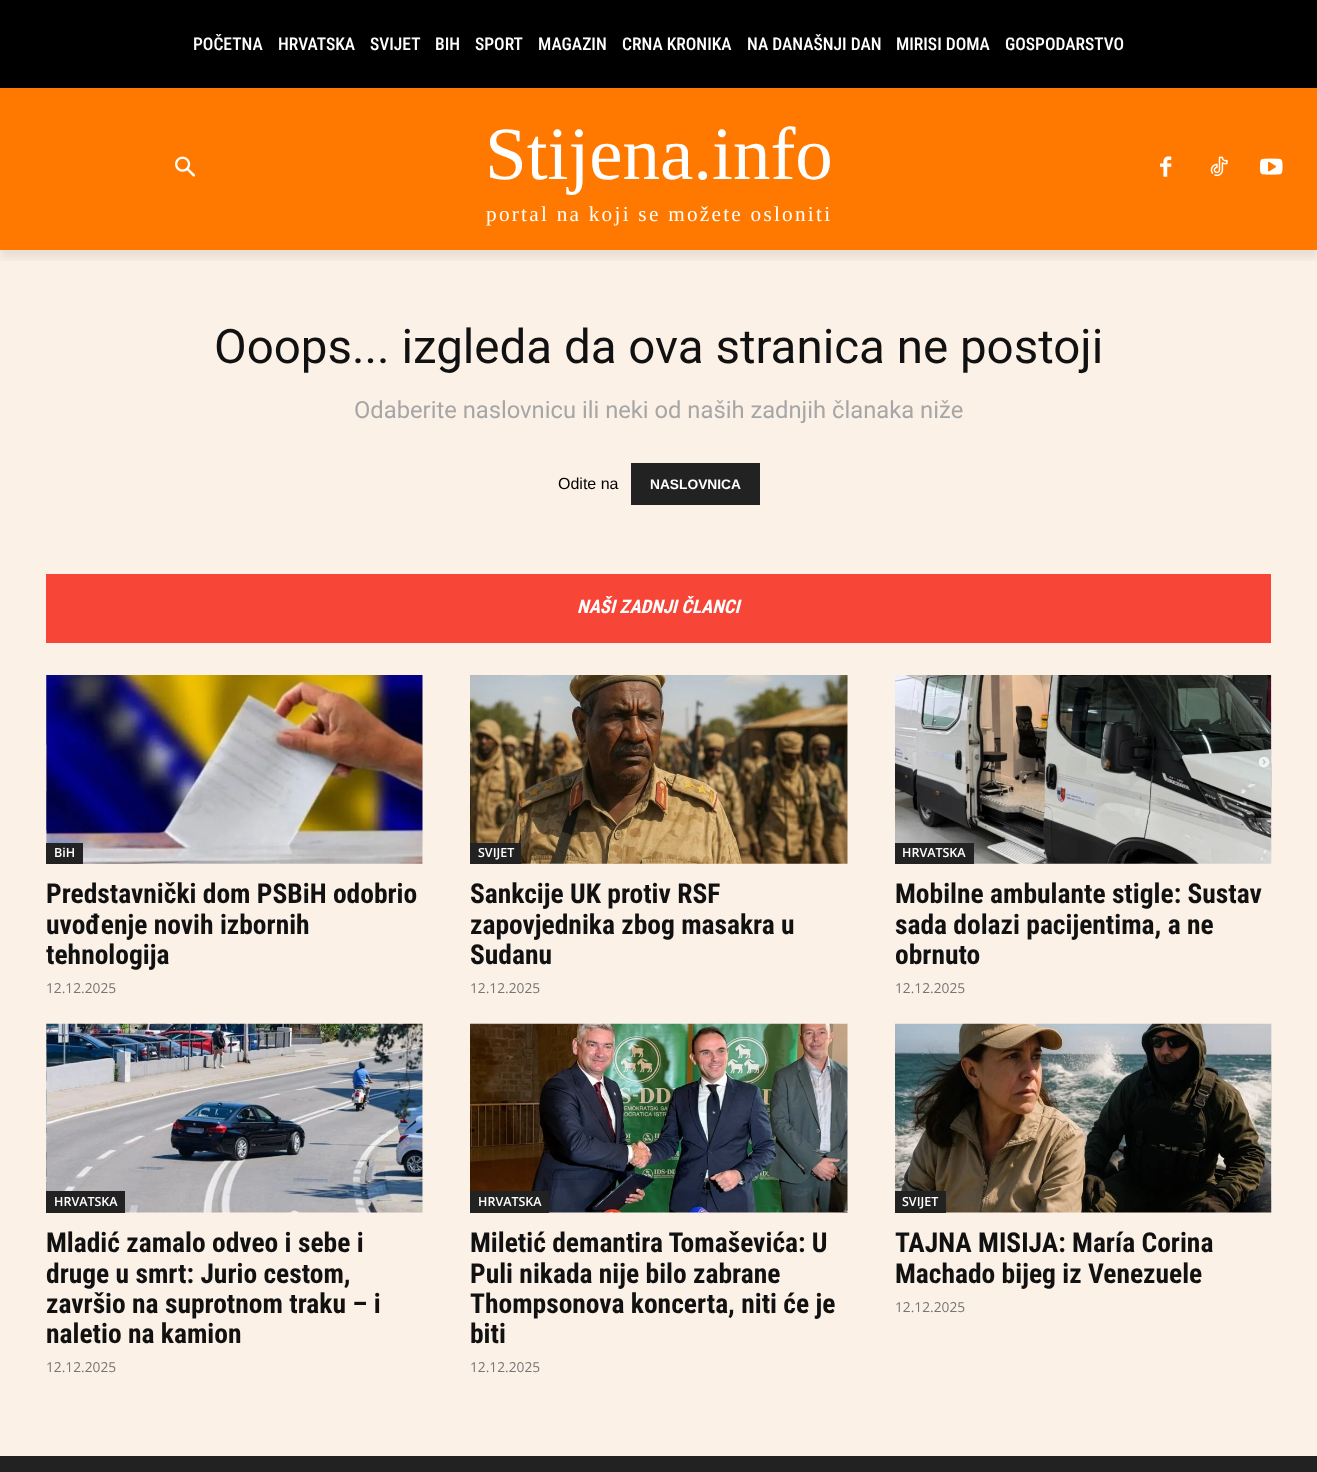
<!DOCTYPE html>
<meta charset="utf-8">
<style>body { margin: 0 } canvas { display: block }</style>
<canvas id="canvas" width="1317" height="1472"></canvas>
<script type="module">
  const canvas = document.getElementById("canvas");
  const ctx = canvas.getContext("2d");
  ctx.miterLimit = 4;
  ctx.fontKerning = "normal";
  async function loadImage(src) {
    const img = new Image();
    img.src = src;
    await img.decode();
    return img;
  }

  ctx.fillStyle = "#fcf1e7";
  ctx.fillRect(0, 0, 1317, 1472);
  ctx.fillStyle = "#000000";
  ctx.fillRect(0, 0, 1317, 88);
  ctx.font = "500 17.5px Roboto Condensed";
  ctx.fillStyle = "#ffffff";
  ctx.fillText("POČETNA", 193, 50);
  ctx.fillText("HRVATSKA", 278, 50);
  ctx.fillText("SVIJET", 370, 50);
  ctx.fillText("BIH", 435, 50);
  ctx.fillText("SPORT", 475, 50);
  ctx.fillText("MAGAZIN", 538, 50);
  ctx.fillText("CRNA KRONIKA", 622, 50);
  ctx.fillText("NA DANAŠNJI DAN", 747, 50);
  ctx.fillText("MIRISI DOMA", 896, 50);
  ctx.fillText("GOSPODARSTVO", 1005, 50);
  ctx.fillStyle = "#ff7900";
  ctx.fillRect(0, 88, 1317, 162);
  ctx.drawImage(await loadImage("img2.png"), 1160, 156, 12, 21);
  ctx.drawImage(await loadImage("img3.png"), 1210, 156, 18, 21);
  ctx.drawImage(await loadImage("img4.png"), 1260, 158, 23, 17);
  ctx.save();
  ctx.beginPath();
  ctx.rect(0, 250, 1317, 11);
  ctx.clip();
  ctx.fillStyle = "rgba(0, 0, 0, 0.08)";
  ctx.filter = "blur(5px)";
  ctx.beginPath();
  ctx.rect(0, 95, 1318, 163);
  ctx.fill();
  ctx.filter = "none";
  ctx.restore();
  ctx.drawImage(await loadImage("img1.png"), 175, 156, 20, 21);
  ctx.font = "75px Liberation Serif";
  ctx.fillStyle = "#ffffff";
  ctx.fillText("Stijena.info", 485, 179);
  ctx.letterSpacing = "2.25px";
  ctx.font = "21.25px Liberation Serif";
  ctx.fillText("portal na koji se možete osloniti", 486, 221);
  ctx.letterSpacing = "0px";
  ctx.font = "47.5px Roboto";
  ctx.fillStyle = "#111111";
  ctx.fillText("Ooops... izgleda da ova stranica ne postoji", 214, 363);
  ctx.font = "23.75px Roboto";
  ctx.fillStyle = "#a6a6a6";
  ctx.fillText("Odaberite naslovnicu ili neki od naših zadnjih članaka niže", 354, 418);
  ctx.font = "16px Liberation Sans";
  ctx.fillStyle = "#000000";
  ctx.fillText("Odite na", 558, 489);
  ctx.fillStyle = "#222222";
  ctx.fillRect(631, 463, 129, 42);
  ctx.font = "bold 13.75px Liberation Sans";
  ctx.fillStyle = "#ffffff";
  ctx.fillText("NASLOVNICA", 650, 489);
  ctx.fillStyle = "#f74538";
  ctx.fillRect(46, 574, 1225, 69);
  ctx.font = "italic bold 18.75px Roboto Condensed";
  ctx.fillStyle = "#ffffff";
  ctx.fillText("NAŠI ZADNJI ČLANCI", 577, 613);
  ctx.drawImage(await loadImage("img5.png"), 46, 675, 377, 189);
  ctx.fillStyle = "#222222";
  ctx.fillRect(46, 843, 37, 21);
  ctx.font = "600 12.5px Open Sans";
  ctx.fillStyle = "#ffffff";
  ctx.fillText("BiH", 54, 857);
  ctx.font = "bold 27.5px Roboto Condensed";
  ctx.fillStyle = "#111111";
  ctx.fillText("Predstavnički dom PSBiH odobrio", 46, 903);
  ctx.fillText("uvođenje novih izbornih", 46, 934);
  ctx.fillText("tehnologija", 46, 964);
  ctx.font = "13.75px Open Sans";
  ctx.fillStyle = "#767676";
  ctx.fillText("12.12.2025", 46, 993);
  ctx.drawImage(await loadImage("img6.png"), 470, 675, 378, 189);
  ctx.fillStyle = "#222222";
  ctx.fillRect(470, 843, 51, 21);
  ctx.font = "600 12.5px Open Sans";
  ctx.fillStyle = "#ffffff";
  ctx.fillText("SVIJET", 478, 857);
  ctx.font = "bold 27.5px Roboto Condensed";
  ctx.fillStyle = "#111111";
  ctx.fillText("Sankcije UK protiv RSF", 470, 903);
  ctx.fillText("zapovjednika zbog masakra u", 470, 934);
  ctx.fillText("Sudanu", 470, 964);
  ctx.font = "13.75px Open Sans";
  ctx.fillStyle = "#767676";
  ctx.fillText("12.12.2025", 470, 993);
  ctx.drawImage(await loadImage("img7.png"), 895, 675, 377, 189);
  ctx.fillStyle = "#222222";
  ctx.fillRect(895, 843, 79, 21);
  ctx.font = "600 12.5px Open Sans";
  ctx.fillStyle = "#ffffff";
  ctx.fillText("HRVATSKA", 902, 857);
  ctx.font = "bold 27.5px Roboto Condensed";
  ctx.fillStyle = "#111111";
  ctx.fillText("Mobilne ambulante stigle: Sustav", 895, 903);
  ctx.fillText("sada dolazi pacijentima, a ne", 895, 934);
  ctx.fillText("obrnuto", 895, 964);
  ctx.font = "13.75px Open Sans";
  ctx.fillStyle = "#767676";
  ctx.fillText("12.12.2025", 895, 993);
  ctx.drawImage(await loadImage("img8.png"), 46, 1023, 377, 190);
  ctx.fillStyle = "#222222";
  ctx.fillRect(46, 1191, 79, 22);
  ctx.font = "600 12.5px Open Sans";
  ctx.fillStyle = "#ffffff";
  ctx.fillText("HRVATSKA", 54, 1206);
  ctx.font = "bold 27.5px Roboto Condensed";
  ctx.fillStyle = "#111111";
  ctx.fillText("Mladić zamalo odveo i sebe i", 46, 1252);
  ctx.fillText("druge u smrt: Jurio cestom,", 46, 1283);
  ctx.fillText("završio na suprotnom traku – i", 46, 1313);
  ctx.fillText("naletio na kamion", 46, 1343);
  ctx.font = "13.75px Open Sans";
  ctx.fillStyle = "#767676";
  ctx.fillText("12.12.2025", 46, 1372);
  ctx.drawImage(await loadImage("img9.png"), 470, 1023, 378, 190);
  ctx.fillStyle = "#222222";
  ctx.fillRect(470, 1191, 79, 22);
  ctx.font = "600 12.5px Open Sans";
  ctx.fillStyle = "#ffffff";
  ctx.fillText("HRVATSKA", 478, 1206);
  ctx.font = "bold 27.5px Roboto Condensed";
  ctx.fillStyle = "#111111";
  ctx.fillText("Miletić demantira Tomaševića: U", 470, 1252);
  ctx.fillText("Puli nikada nije bilo zabrane", 470, 1283);
  ctx.fillText("Thompsonova koncerta, niti će je", 470, 1313);
  ctx.fillText("biti", 470, 1343);
  ctx.font = "13.75px Open Sans";
  ctx.fillStyle = "#767676";
  ctx.fillText("12.12.2025", 470, 1372);
  ctx.drawImage(await loadImage("img10.png"), 895, 1023, 377, 190);
  ctx.fillStyle = "#222222";
  ctx.fillRect(895, 1191, 51, 22);
  ctx.font = "600 12.5px Open Sans";
  ctx.fillStyle = "#ffffff";
  ctx.fillText("SVIJET", 902, 1206);
  ctx.font = "bold 27.5px Roboto Condensed";
  ctx.fillStyle = "#111111";
  ctx.fillText("TAJNA MISIJA: María Corina", 895, 1252);
  ctx.fillText("Machado bijeg iz Venezuele", 895, 1283);
  ctx.font = "13.75px Open Sans";
  ctx.fillStyle = "#767676";
  ctx.fillText("12.12.2025", 895, 1312);
  ctx.fillStyle = "#222222";
  ctx.fillRect(0, 1456, 1317, 16);
</script>
